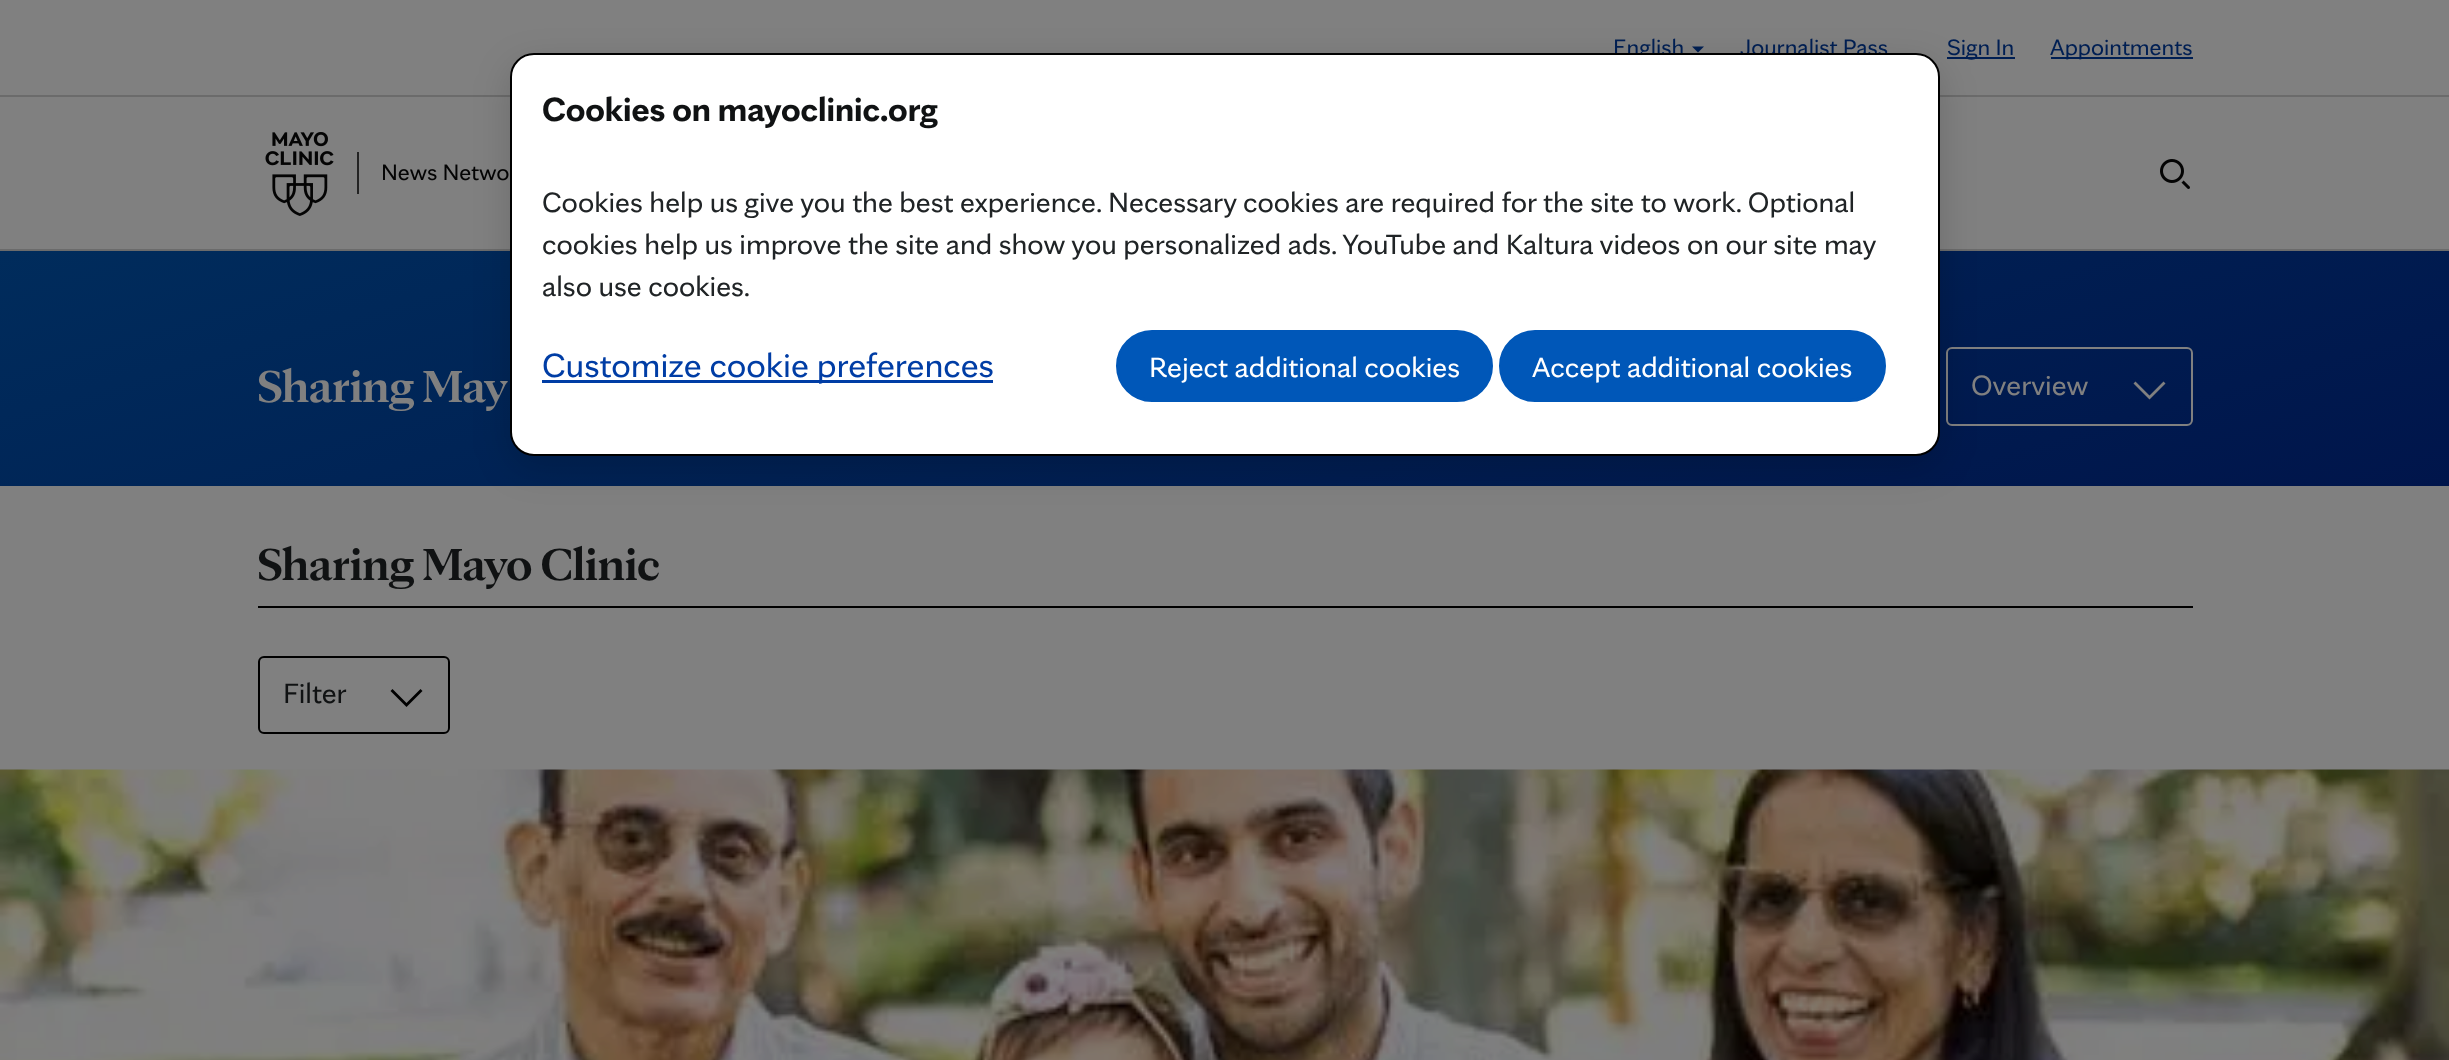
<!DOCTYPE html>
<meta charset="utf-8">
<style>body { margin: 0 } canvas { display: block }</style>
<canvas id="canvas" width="2449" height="1060"></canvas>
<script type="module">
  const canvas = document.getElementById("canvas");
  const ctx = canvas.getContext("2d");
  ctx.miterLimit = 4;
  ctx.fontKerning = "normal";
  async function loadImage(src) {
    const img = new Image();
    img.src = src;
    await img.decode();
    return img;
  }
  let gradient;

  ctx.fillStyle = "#808080";
  ctx.fillRect(0, 0, 2449, 1060);
  ctx.font = "24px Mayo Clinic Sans";
  ctx.fillStyle = "#001f53";
  ctx.fillText("English", 1613, 55);
  ctx.beginPath();
  ctx.moveTo(1692, 46.5);
  ctx.lineTo(1704, 46.5);
  ctx.lineTo(1698, 52.5);
  ctx.closePath();
  ctx.fill();
  ctx.fillText("Journalist Pass", 1740, 55);
  ctx.fillRect(1947, 57, 68, 2);
  ctx.fillText("Sign In", 1947, 55);
  ctx.fillRect(2051, 57, 142, 2);
  ctx.fillText("Appointments", 2050, 55);
  ctx.fillStyle = "#6b6b6b";
  ctx.fillRect(0, 95, 2449, 2);
  ctx.fillRect(0, 249, 2449, 2);
  ctx.drawImage(await loadImage("img1.png"), 265, 132, 244, 84);
  ctx.drawImage(await loadImage("img2.png"), 2160, 159, 30, 30);
  gradient = ctx.createLinearGradient(1100, -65, 1349, 802);
  gradient.addColorStop(0, "#002c5c");
  gradient.addColorStop(1, "#00154b");
  ctx.fillStyle = gradient;
  ctx.fillRect(0, 251, 2449, 235);
  ctx.beginPath();
  ctx.roundRect(1947, 348, 245, 77, 5);
  ctx.strokeStyle = "#808080";
  ctx.lineWidth = 2;
  ctx.stroke();
  ctx.fillStyle = "rgba(0, 0, 0, 0.16)";
  ctx.filter = "blur(18px)";
  ctx.beginPath();
  ctx.roundRect(510, 65, 1430, 403, 24);
  ctx.fill();
  ctx.filter = "none";
  ctx.fillStyle = "#ffffff";
  ctx.beginPath();
  ctx.roundRect(511, 54, 1428, 401, 23);
  ctx.fill();
  ctx.strokeStyle = "#000000";
  ctx.stroke();
  ctx.font = "bold 36px Mayo Clinic Sans";
  ctx.fillStyle = "#101213";
  ctx.fillText("Cookies on mayoclinic.org", 542, 121);
  ctx.font = "30px Mayo Clinic Sans";
  ctx.fillStyle = "#202426";
  ctx.fillText("Cookies help us give you the best experience. Necessary cookies are required for the site to work. Optional", 542, 212);
  ctx.fillText("cookies help us improve the site and show you personalized ads. YouTube and Kaltura videos on our site may", 542, 254);
  ctx.fillText("also use cookies.", 542, 296);
  ctx.fillStyle = "#003da5";
  ctx.fillRect(542, 380, 451, 3);
  ctx.font = "36px Mayo Clinic Sans";
  ctx.fillText("Customize cookie preferences", 542, 377);
  ctx.fillStyle = "#0057b8";
  ctx.beginPath();
  ctx.roundRect(1117.5, 331.5, 374, 69, 34.5);
  ctx.fill();
  ctx.strokeStyle = "#0057b8";
  ctx.lineWidth = 3;
  ctx.stroke();
  ctx.font = "30px Mayo Clinic Sans";
  ctx.fillStyle = "#ffffff";
  ctx.fillText("Reject additional cookies", 1149, 377);
  ctx.fillStyle = "#0057b8";
  ctx.beginPath();
  ctx.roundRect(1500.5, 331.5, 384, 69, 34.5);
  ctx.fill();
  ctx.stroke();
  ctx.fillStyle = "#ffffff";
  ctx.fillText("Accept additional cookies", 1532, 377);
  ctx.font = "bold 48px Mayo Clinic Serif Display";
  ctx.fillStyle = "#808080";
  ctx.fillText("Sharing May", 257, 402);
  ctx.font = "30px Mayo Clinic Sans";
  ctx.fillText("Overview", 1971, 395);
  ctx.beginPath();
  ctx.moveTo(2149.5, 399.5);
  ctx.lineTo(2133.5, 383.5);
  ctx.lineTo(2135.5, 381.5);
  ctx.lineTo(2149.5, 395.5);
  ctx.lineTo(2163.5, 381.5);
  ctx.lineTo(2165.5, 383.5);
  ctx.closePath();
  ctx.fill();
  ctx.fillStyle = "#000000";
  ctx.fillRect(258, 606, 1935, 2);
  ctx.font = "bold 48px Mayo Clinic Serif Display";
  ctx.fillStyle = "#101213";
  ctx.fillText("Sharing Mayo Clinic", 257, 580);
  ctx.beginPath();
  ctx.roundRect(259, 657, 190, 76, 5);
  ctx.strokeStyle = "#000000";
  ctx.lineWidth = 2;
  ctx.stroke();
  ctx.font = "30px Mayo Clinic Sans";
  ctx.fillText("Filter", 283, 703);
  ctx.fillStyle = "#000000";
  ctx.beginPath();
  ctx.moveTo(406.5, 707);
  ctx.lineTo(390.5, 691);
  ctx.lineTo(392.5, 689);
  ctx.lineTo(406.5, 703);
  ctx.lineTo(420.5, 689);
  ctx.lineTo(422.5, 691);
  ctx.closePath();
  ctx.fill();
  ctx.drawImage(await loadImage("img3.png"), 0, 769, 2449, 291);
</script>
